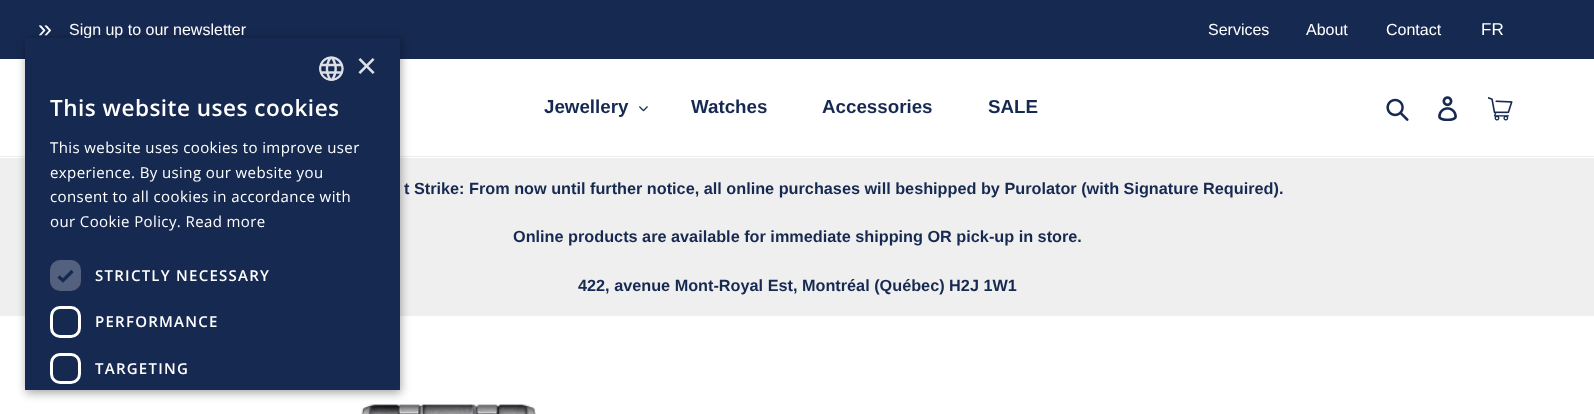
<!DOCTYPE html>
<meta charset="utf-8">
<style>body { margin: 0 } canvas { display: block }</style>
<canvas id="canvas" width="1594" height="414"></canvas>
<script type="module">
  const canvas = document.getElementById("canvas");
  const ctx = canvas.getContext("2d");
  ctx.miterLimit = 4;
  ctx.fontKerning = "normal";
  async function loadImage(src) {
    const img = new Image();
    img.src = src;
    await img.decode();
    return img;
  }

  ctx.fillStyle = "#ffffff";
  ctx.fillRect(0, 0, 1594, 414);
  ctx.fillStyle = "#162950";
  ctx.fillRect(0, 0, 1594, 59);
  ctx.font = "25px Liberation Sans";
  ctx.fillStyle = "#ffffff";
  ctx.fillText("»", 38, 37);
  ctx.font = "16px Liberation Sans";
  ctx.fillText("Sign up to our newsletter", 69, 35);
  ctx.fillText("Services", 1208, 35);
  ctx.fillText("About", 1306, 35);
  ctx.fillText("Contact", 1386, 35);
  ctx.font = "17px Liberation Sans";
  ctx.fillText("FR", 1481, 35);
  ctx.fillStyle = "#ebebeb";
  ctx.fillRect(0, 156, 1594, 1);
  ctx.font = "bold 18.75px Liberation Sans";
  ctx.fillStyle = "#162950";
  ctx.fillText("Jewellery", 544, 113);
  ctx.drawImage(await loadImage("img1.png"), 639, 106, 9, 6);
  ctx.fillText("Watches", 691, 113);
  ctx.fillText("Accessories", 822, 113);
  ctx.fillText("SALE", 988, 113);
  ctx.drawImage(await loadImage("img2.png"), 1386, 98, 23, 23);
  ctx.drawImage(await loadImage("img3.png"), 1438, 96, 19, 25);
  ctx.drawImage(await loadImage("img4.png"), 1488, 97, 25, 24);
  ctx.fillStyle = "#efefef";
  ctx.fillRect(0, 158, 1594, 158);
  ctx.drawImage(await loadImage("img6.png"), 361, 404, 175, 10);
  ctx.fillStyle = "rgba(0, 0, 0, 0.35)";
  ctx.filter = "blur(5px)";
  ctx.beginPath();
  ctx.rect(26, 40, 375, 353);
  ctx.fill();
  ctx.filter = "none";
  ctx.fillStyle = "#162950";
  ctx.fillRect(25, 38, 375, 352);
  ctx.drawImage(await loadImage("img5.png"), 319, 56, 25, 25);
  ctx.font = "36px Liberation Sans";
  ctx.fillStyle = "#dcdfe5";
  ctx.fillText("×", 356, 78);
  ctx.letterSpacing = "0.5px";
  ctx.font = "600 22.5px Open Sans";
  ctx.fillStyle = "#ffffff";
  ctx.fillText("This website uses cookies", 50, 116);
  ctx.letterSpacing = "0.4px";
  ctx.font = "15px Open Sans";
  ctx.fillText("This website uses cookies to improve user", 50, 153);
  ctx.fillText("experience. By using our website you", 50, 178);
  ctx.fillText("consent to all cookies in accordance with", 50, 202);
  ctx.fillText("our Cookie Policy. Read more", 50, 227);
  ctx.fillStyle = "#53617e";
  ctx.beginPath();
  ctx.roundRect(50, 260, 31, 31, 10);
  ctx.fill();
  ctx.beginPath();
  ctx.moveTo(58.5, 276.5);
  ctx.lineTo(63, 280.5);
  ctx.lineTo(72.5, 271);
  ctx.strokeStyle = "#162950";
  ctx.lineWidth = 3.3;
  ctx.stroke();
  ctx.letterSpacing = "1.25px";
  ctx.font = "600 15px Open Sans";
  ctx.fillStyle = "#ffffff";
  ctx.fillText("STRICTLY NECESSARY", 95, 281);
  ctx.beginPath();
  ctx.roundRect(51.5, 307.5, 28, 29, 8.5);
  ctx.strokeStyle = "#ffffff";
  ctx.lineWidth = 3;
  ctx.stroke();
  ctx.fillText("PERFORMANCE", 95, 327);
  ctx.beginPath();
  ctx.roundRect(51.5, 354.5, 28, 28, 8.5);
  ctx.stroke();
  ctx.fillText("TARGETING", 95, 374);
  ctx.letterSpacing = "0px";
  ctx.font = "bold 16.25px Liberation Sans";
  ctx.fillStyle = "#162950";
  ctx.fillText("t Strike: From now until further notice, all online purchases will beshipped by Purolator (with Signature Required).", 404, 194);
  ctx.fillText("Online products are available for immediate shipping OR pick-up in store.", 513, 242);
  ctx.fillText("422, avenue Mont-Royal Est, Montréal (Québec) H2J 1W1", 578, 291);
</script>
